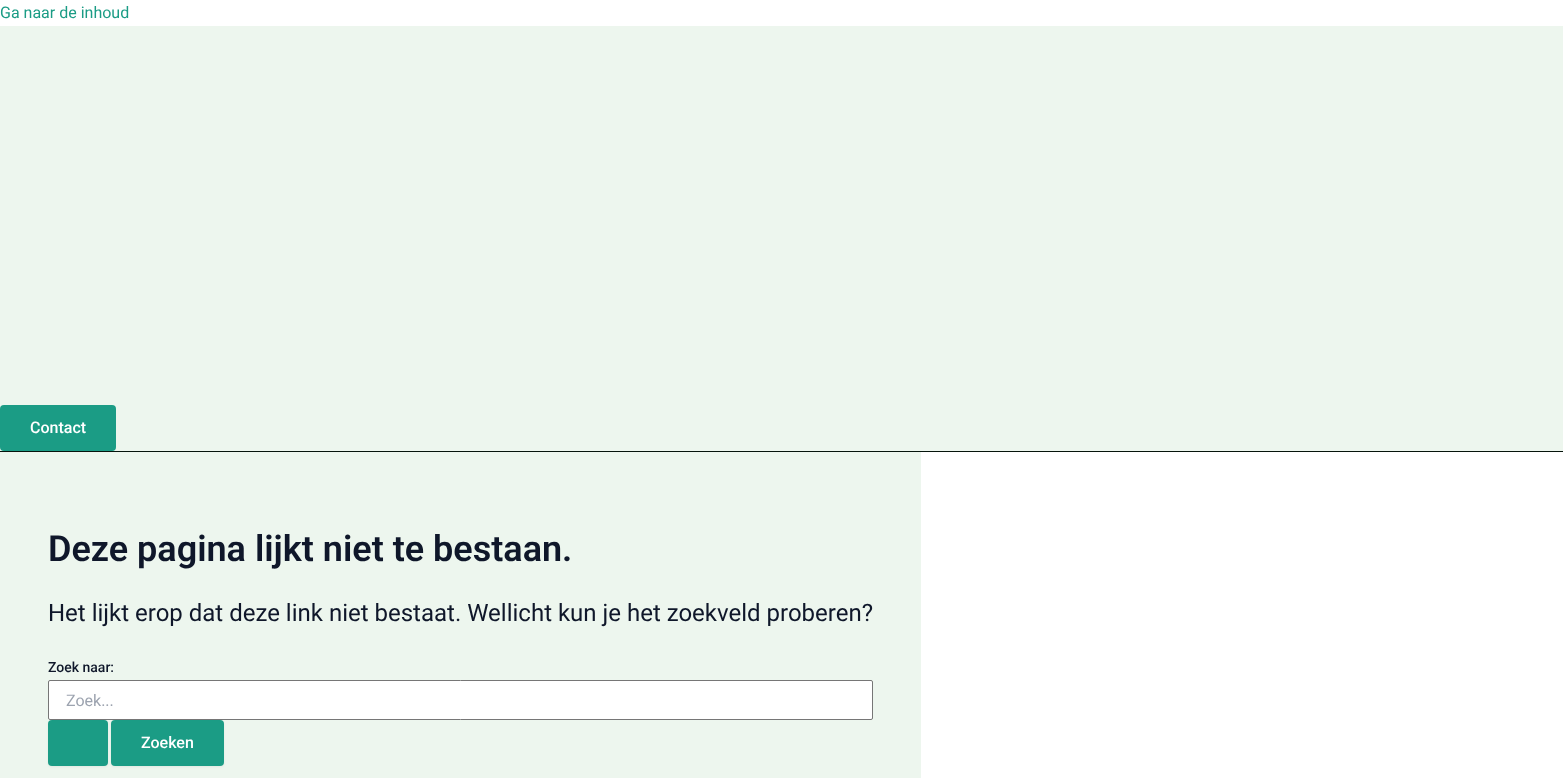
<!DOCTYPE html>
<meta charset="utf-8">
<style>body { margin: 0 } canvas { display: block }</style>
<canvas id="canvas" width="1563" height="778"></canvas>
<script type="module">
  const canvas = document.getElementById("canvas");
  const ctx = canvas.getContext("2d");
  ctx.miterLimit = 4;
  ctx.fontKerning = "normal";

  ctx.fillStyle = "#ffffff";
  ctx.fillRect(0, 0, 1563, 778);
  ctx.font = "16px Roboto";
  ctx.fillStyle = "#1b9c85";
  ctx.fillText("Ga naar de inhoud", 0, 18);
  ctx.fillStyle = "#edf6ee";
  ctx.fillRect(0, 26, 1563, 425);
  ctx.fillStyle = "#06140c";
  ctx.fillRect(0, 451, 1563, 1);
  ctx.fillStyle = "#1b9c85";
  ctx.beginPath();
  ctx.roundRect(0, 405, 116, 46, 4);
  ctx.fill();
  ctx.font = "500 16px Roboto";
  ctx.fillStyle = "#ffffff";
  ctx.fillText("Contact", 30, 433);
  ctx.fillStyle = "#edf6ee";
  ctx.fillRect(0, 452, 921, 326);
  ctx.font = "600 36px Roboto";
  ctx.fillStyle = "#0f172a";
  ctx.fillText("Deze pagina lijkt niet te bestaan.", 48, 561);
  ctx.font = "24px Roboto";
  ctx.fillText("Het lijkt erop dat deze link niet bestaat. Wellicht kun je het zoekveld proberen?", 48, 621);
  ctx.font = "500 14px Roboto";
  ctx.fillText("Zoek naar:", 48, 672);
  ctx.fillStyle = "#ffffff";
  ctx.beginPath();
  ctx.roundRect(48.5, 680.5, 824, 39, 1.5);
  ctx.fill();
  ctx.strokeStyle = "#767676";
  ctx.stroke();
  ctx.font = "16px Roboto";
  ctx.fillStyle = "#9ca3af";
  ctx.fillText("Zoek...", 66, 706);
  ctx.fillStyle = "rgba(0, 0, 0, 0.05)";
  ctx.filter = "blur(1px)";
  ctx.beginPath();
  ctx.roundRect(48, 721, 60, 46, 4);
  ctx.fill();
  ctx.filter = "none";
  ctx.fillStyle = "#1b9c85";
  ctx.beginPath();
  ctx.roundRect(48, 720, 60, 46, 4);
  ctx.fill();
  ctx.fillStyle = "rgba(0, 0, 0, 0.05)";
  ctx.filter = "blur(1px)";
  ctx.beginPath();
  ctx.roundRect(111, 721, 113, 46, 4);
  ctx.fill();
  ctx.filter = "none";
  ctx.fillStyle = "#1b9c85";
  ctx.beginPath();
  ctx.roundRect(111, 720, 113, 46, 4);
  ctx.fill();
  ctx.font = "500 16px Roboto";
  ctx.fillStyle = "#ffffff";
  ctx.fillText("Zoeken", 141, 748);
</script>
